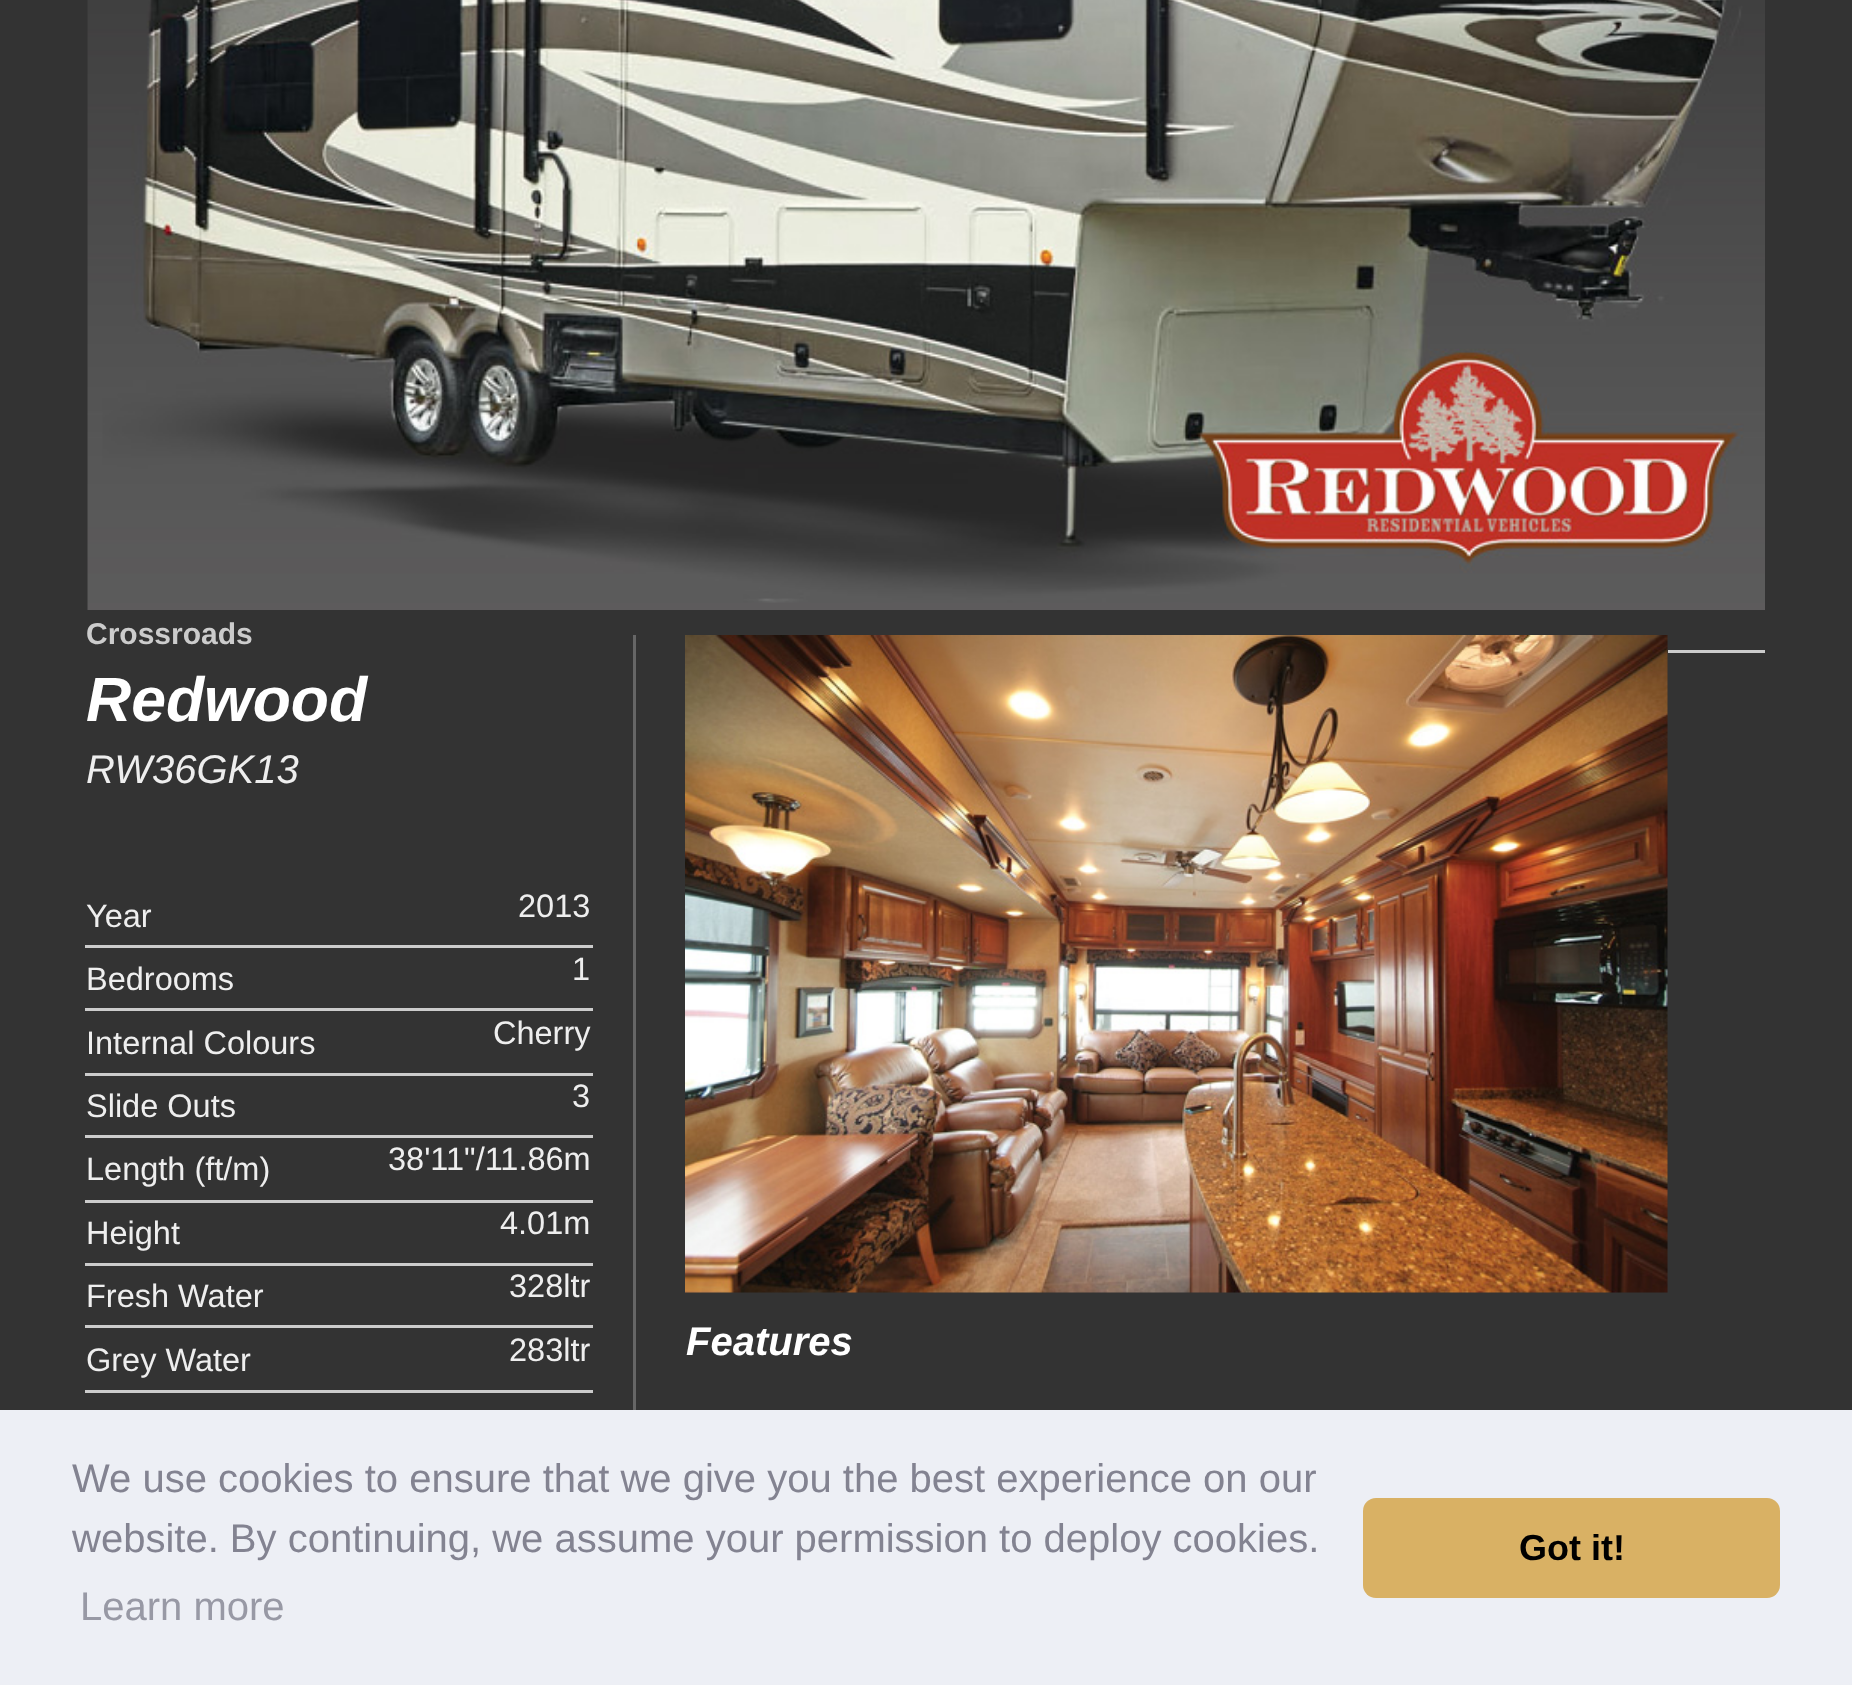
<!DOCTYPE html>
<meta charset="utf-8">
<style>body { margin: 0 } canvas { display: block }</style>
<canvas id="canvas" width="1852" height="1685"></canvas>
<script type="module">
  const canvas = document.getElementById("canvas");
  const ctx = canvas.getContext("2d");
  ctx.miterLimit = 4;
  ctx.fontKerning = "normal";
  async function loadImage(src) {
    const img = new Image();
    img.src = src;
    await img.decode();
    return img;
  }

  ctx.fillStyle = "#333333";
  ctx.fillRect(0, 0, 1852, 1685);
  ctx.drawImage(await loadImage("img1.png"), 87, 0, 1678, 610);
  ctx.font = "bold 30px Liberation Sans";
  ctx.fillStyle = "#cccccc";
  ctx.fillText("Crossroads", 86, 644);
  ctx.font = "italic bold 62.5px Liberation Sans";
  ctx.fillStyle = "#ffffff";
  ctx.fillText("Redwood", 86, 721);
  ctx.font = "italic 40px Liberation Sans";
  ctx.fillStyle = "#eeeeee";
  ctx.fillText("RW36GK13", 86, 783);
  ctx.font = "32.5px Liberation Sans";
  ctx.fillText("Year", 86, 927);
  ctx.fillStyle = "#cccccc";
  ctx.fillRect(85, 945, 508, 3);
  ctx.fillStyle = "#eeeeee";
  ctx.fillText("2013", 518, 917);
  ctx.fillText("Bedrooms", 86, 990);
  ctx.fillStyle = "#cccccc";
  ctx.fillRect(85, 1008, 508, 3);
  ctx.fillStyle = "#eeeeee";
  ctx.fillText("1", 572, 980);
  ctx.fillText("Internal Colours", 86, 1054);
  ctx.fillStyle = "#cccccc";
  ctx.fillRect(85, 1073, 508, 3);
  ctx.fillStyle = "#eeeeee";
  ctx.fillText("Cherry", 493, 1044);
  ctx.fillText("Slide Outs", 86, 1117);
  ctx.fillStyle = "#cccccc";
  ctx.fillRect(85, 1135, 508, 3);
  ctx.fillStyle = "#eeeeee";
  ctx.fillText("3", 572, 1107);
  ctx.fillText("Length (ft/m)", 86, 1180);
  ctx.fillStyle = "#cccccc";
  ctx.fillRect(85, 1200, 508, 3);
  ctx.fillStyle = "#eeeeee";
  ctx.fillText("38'11\"/11.86m", 388, 1170);
  ctx.fillText("Height", 86, 1244);
  ctx.fillStyle = "#cccccc";
  ctx.fillRect(85, 1263, 508, 3);
  ctx.fillStyle = "#eeeeee";
  ctx.fillText("4.01m", 500, 1234);
  ctx.fillText("Fresh Water", 86, 1307);
  ctx.fillStyle = "#cccccc";
  ctx.fillRect(85, 1325, 508, 3);
  ctx.fillStyle = "#eeeeee";
  ctx.fillText("328ltr", 509, 1297);
  ctx.fillText("Grey Water", 86, 1371);
  ctx.fillStyle = "#cccccc";
  ctx.fillRect(85, 1390, 508, 3);
  ctx.fillStyle = "#eeeeee";
  ctx.fillText("283ltr", 509, 1361);
  ctx.fillStyle = "#cccccc";
  ctx.fillRect(1668, 650, 97, 3);
  ctx.fillStyle = "#666666";
  ctx.fillRect(633, 635, 3, 775);
  ctx.drawImage(await loadImage("img2.png"), 685, 635, 983, 658);
  ctx.font = "italic bold 40px Liberation Sans";
  ctx.fillStyle = "#ffffff";
  ctx.fillText("Features", 686, 1355);
  ctx.fillStyle = "#edeff5";
  ctx.fillRect(0, 1410, 1852, 275);
  ctx.font = "40px Liberation Sans";
  ctx.fillStyle = "#838391";
  ctx.fillText("We use cookies to ensure that we give you the best experience on our", 72, 1492);
  ctx.fillText("website. By continuing, we assume your permission to deploy cookies.", 72, 1552);
  ctx.fillStyle = "#9899a5";
  ctx.fillText("Learn more", 80, 1620);
  ctx.fillStyle = "#d9b164";
  ctx.beginPath();
  ctx.roundRect(1363, 1498, 417, 100, 13);
  ctx.fill();
  ctx.font = "bold 36px Liberation Sans";
  ctx.fillStyle = "#000000";
  ctx.fillText("Got it!", 1519, 1560);
</script>
